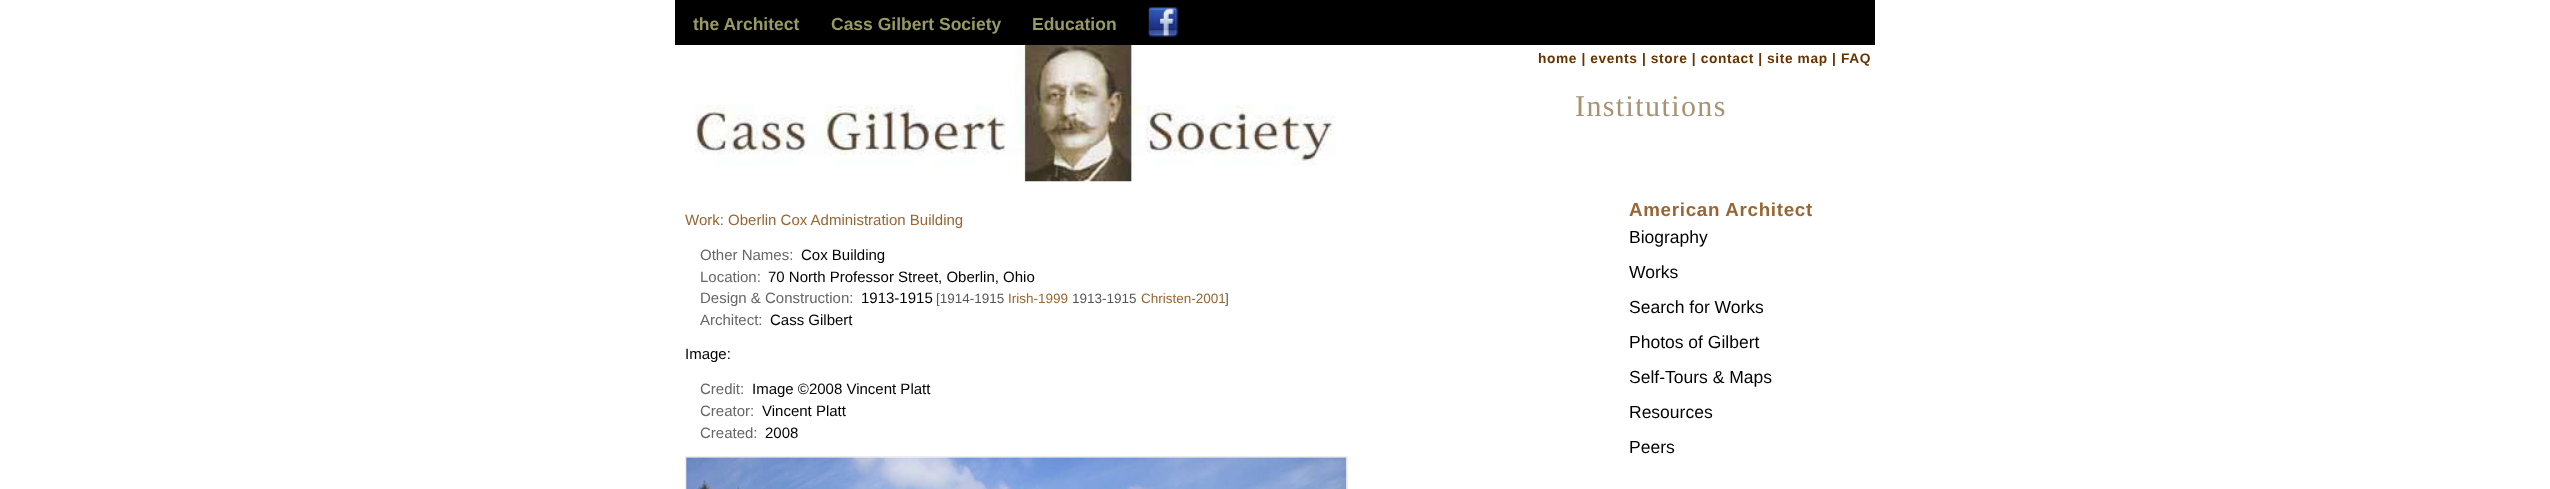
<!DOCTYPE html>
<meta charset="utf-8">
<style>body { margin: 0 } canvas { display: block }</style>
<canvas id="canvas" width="2550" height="489"></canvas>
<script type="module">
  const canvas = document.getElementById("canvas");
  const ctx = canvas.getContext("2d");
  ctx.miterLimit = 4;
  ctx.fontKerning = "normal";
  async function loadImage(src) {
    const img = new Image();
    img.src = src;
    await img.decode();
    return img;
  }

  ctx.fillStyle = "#ffffff";
  ctx.fillRect(0, 0, 2550, 489);
  ctx.fillStyle = "#000000";
  ctx.fillRect(675, 0, 1200, 45);
  ctx.font = "bold 17.5px Liberation Sans";
  ctx.fillStyle = "#999966";
  ctx.fillText("the Architect", 693, 30);
  ctx.fillText("Cass Gilbert Society", 831, 30);
  ctx.fillText("Education", 1032, 30);
  ctx.drawImage(await loadImage("img1.png"), 1148, 7, 31, 31);
  ctx.drawImage(await loadImage("img2.png"), 695, 45, 641, 137);
  ctx.letterSpacing = "0.6px";
  ctx.font = "bold 13.75px Liberation Sans";
  ctx.fillStyle = "#663300";
  ctx.fillText("home | events | store | contact | site map | FAQ", 1538, 63);
  ctx.letterSpacing = "1.4px";
  ctx.font = "30px Liberation Serif";
  ctx.fillStyle = "#a79374";
  ctx.fillText("Institutions", 1575, 116);
  ctx.letterSpacing = "0px";
  ctx.font = "15px Liberation Sans";
  ctx.fillStyle = "#996633";
  ctx.fillText("Work: Oberlin Cox Administration Building", 685, 225);
  ctx.fillStyle = "#666666";
  ctx.fillText("Other Names:", 700, 260);
  ctx.fillStyle = "#000000";
  ctx.fillText("Cox Building", 801, 260);
  ctx.fillStyle = "#666666";
  ctx.fillText("Location:", 700, 282);
  ctx.fillStyle = "#000000";
  ctx.fillText("70 North Professor Street, Oberlin, Ohio", 768, 282);
  ctx.fillStyle = "#666666";
  ctx.fillText("Design & Construction:", 700, 303);
  ctx.fillStyle = "#000000";
  ctx.fillText("1913-1915", 861, 303);
  ctx.font = "13.5px Liberation Sans";
  ctx.fillStyle = "#555555";
  ctx.fillText("[1914-1915", 936, 303);
  ctx.fillStyle = "#996633";
  ctx.fillText("Irish-1999", 1008, 303);
  ctx.fillStyle = "#555555";
  ctx.fillText("1913-1915", 1072, 303);
  ctx.fillStyle = "#996633";
  ctx.fillText("Christen-2001", 1141, 303);
  ctx.fillStyle = "#555555";
  ctx.fillText("]", 1225, 303);
  ctx.font = "15px Liberation Sans";
  ctx.fillStyle = "#666666";
  ctx.fillText("Architect:", 700, 325);
  ctx.fillStyle = "#000000";
  ctx.fillText("Cass Gilbert", 770, 325);
  ctx.fillText("Image:", 685, 359);
  ctx.fillStyle = "#666666";
  ctx.fillText("Credit:", 700, 394);
  ctx.fillStyle = "#000000";
  ctx.fillText("Image ©2008 Vincent Platt", 752, 394);
  ctx.fillStyle = "#666666";
  ctx.fillText("Creator:", 700, 416);
  ctx.fillStyle = "#000000";
  ctx.fillText("Vincent Platt", 762, 416);
  ctx.fillStyle = "#666666";
  ctx.fillText("Created:", 700, 438);
  ctx.fillStyle = "#000000";
  ctx.fillText("2008", 765, 438);
  ctx.strokeStyle = "#eeeeee";
  ctx.strokeRect(685.5, 456.5, 662, 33);
  ctx.drawImage(await loadImage("img3.png"), 686, 457, 661, 32);
  ctx.letterSpacing = "0.7px";
  ctx.font = "bold 18.75px Liberation Sans";
  ctx.fillStyle = "#996633";
  ctx.fillText("American Architect", 1629, 216);
  ctx.letterSpacing = "0px";
  ctx.font = "17.5px Liberation Sans";
  ctx.fillStyle = "#000000";
  ctx.fillText("Biography", 1629, 243);
  ctx.fillText("Works", 1629, 278);
  ctx.fillText("Search for Works", 1629, 313);
  ctx.fillText("Photos of Gilbert", 1629, 348);
  ctx.fillText("Self-Tours & Maps", 1629, 383);
  ctx.fillText("Resources", 1629, 418);
  ctx.fillText("Peers", 1629, 453);
</script>
